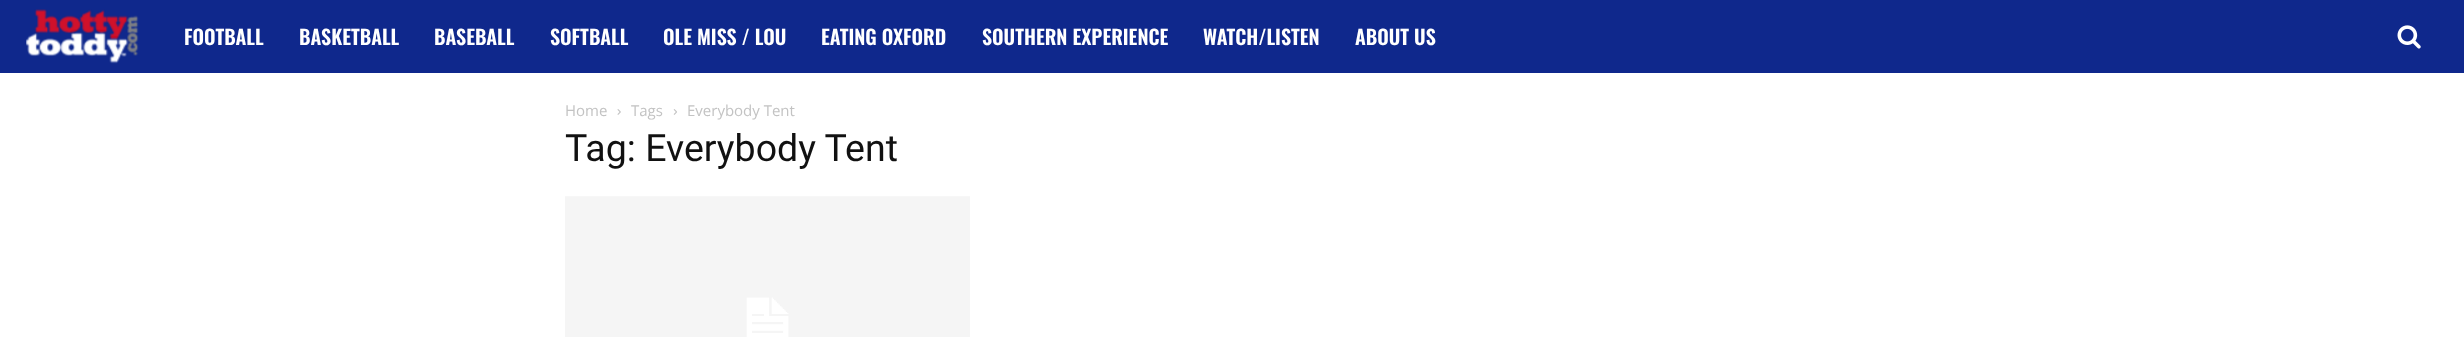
<!DOCTYPE html>
<meta charset="utf-8">
<style>body { margin: 0 } canvas { display: block }</style>
<canvas id="canvas" width="2464" height="337"></canvas>
<script type="module">
  const canvas = document.getElementById("canvas");
  const ctx = canvas.getContext("2d");
  ctx.miterLimit = 4;
  ctx.fontKerning = "normal";
  async function loadImage(src) {
    const img = new Image();
    img.src = src;
    await img.decode();
    return img;
  }

  ctx.fillStyle = "#ffffff";
  ctx.fillRect(0, 0, 2464, 337);
  ctx.fillStyle = "#0f288c";
  ctx.fillRect(0, 0, 2464, 73);
  ctx.drawImage(await loadImage("img1.png"), 26, 9, 113, 55);
  ctx.font = "600 20px Oswald";
  ctx.fillStyle = "#ffffff";
  ctx.fillText("FOOTBALL", 184, 45);
  ctx.fillText("BASKETBALL", 299, 45);
  ctx.fillText("BASEBALL", 434, 45);
  ctx.fillText("SOFTBALL", 550, 45);
  ctx.fillText("OLE MISS / LOU", 663, 45);
  ctx.fillText("EATING OXFORD", 821, 45);
  ctx.fillText("SOUTHERN EXPERIENCE", 982, 45);
  ctx.fillText("WATCH/LISTEN", 1203, 45);
  ctx.fillText("ABOUT US", 1355, 45);
  ctx.drawImage(await loadImage("img2.png"), 2397, 25, 24, 24);
  ctx.font = "15px Open Sans";
  ctx.fillStyle = "#c3c3c3";
  ctx.fillText("Home", 565, 116);
  ctx.drawImage(await loadImage("img3.png"), 617, 109, 4, 6);
  ctx.fillText("Tags", 631, 116);
  ctx.drawImage(await loadImage("img4.png"), 673, 109, 4, 6);
  ctx.fillText("Everybody Tent", 687, 116);
  ctx.font = "37.5px Roboto";
  ctx.fillStyle = "#111111";
  ctx.fillText("Tag: Everybody Tent", 565, 161);
  ctx.drawImage(await loadImage("img5.png"), 565, 196, 405, 141);
</script>
